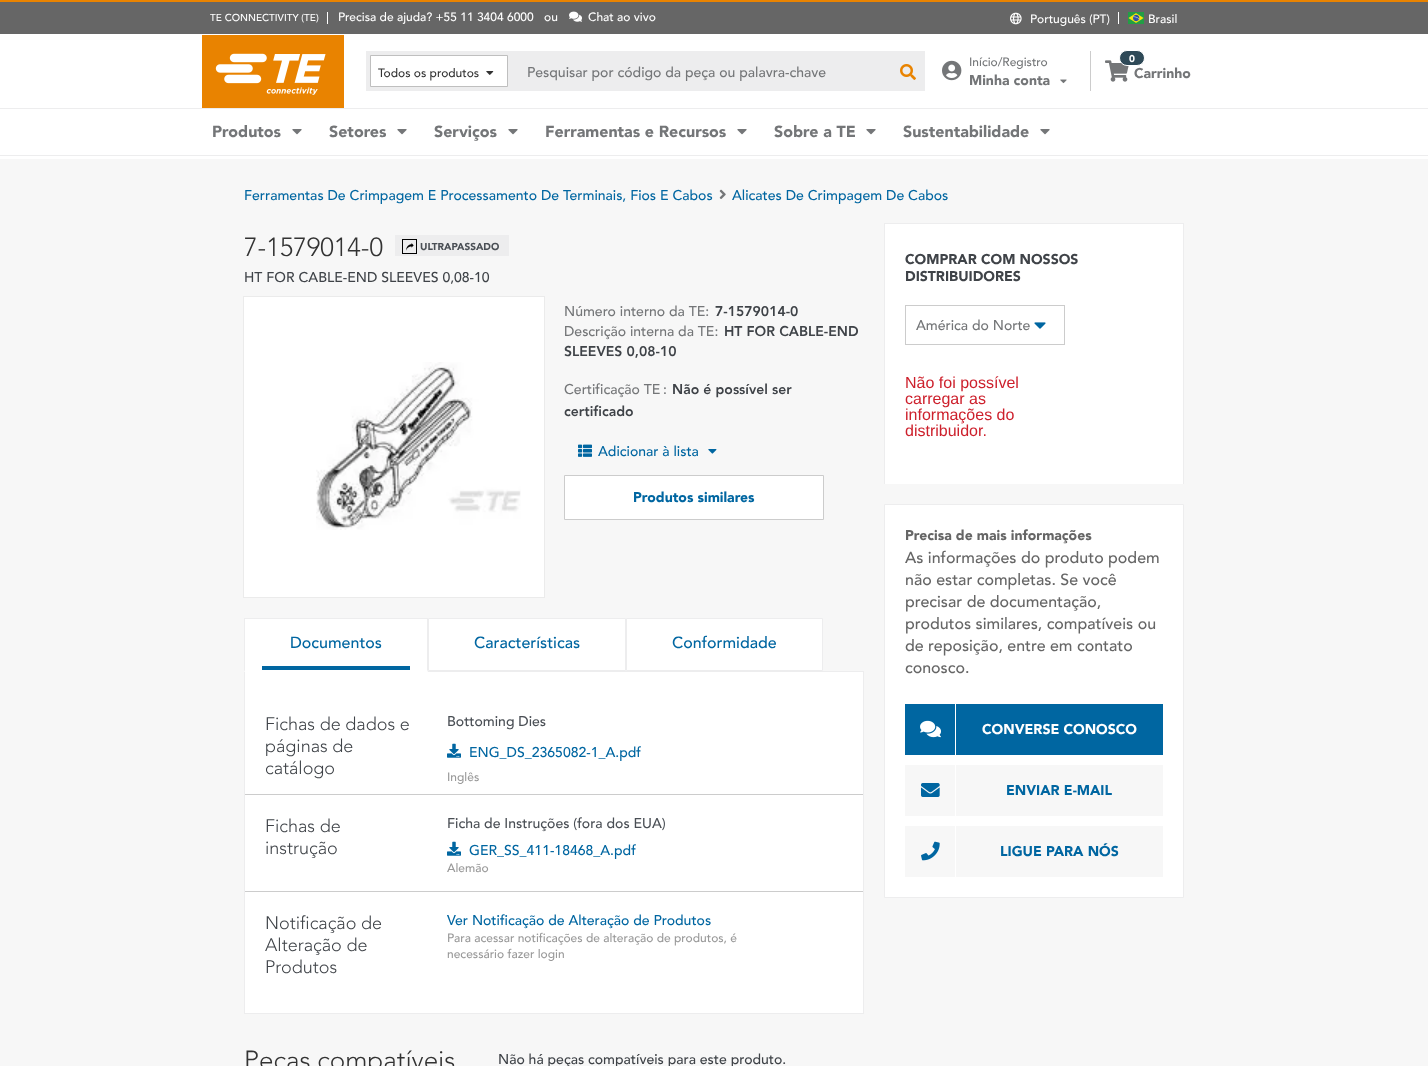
<!DOCTYPE html>
<meta charset="utf-8">
<style>body { margin: 0 } canvas { display: block }</style>
<canvas id="canvas" width="1428" height="1066"></canvas>
<script type="module">
  const canvas = document.getElementById("canvas");
  const ctx = canvas.getContext("2d");
  ctx.miterLimit = 4;
  ctx.fontKerning = "normal";
  async function loadImage(src) {
    const img = new Image();
    img.src = src;
    await img.decode();
    return img;
  }

  ctx.fillStyle = "#ffffff";
  ctx.fillRect(0, 0, 1428, 1066);
  ctx.fillStyle = "#666666";
  ctx.fillRect(0, 2, 1428, 32);
  ctx.fillStyle = "#e98300";
  ctx.fillRect(0, 0, 1428, 2);
  ctx.font = "500 10px Avenir";
  ctx.fillStyle = "#ffffff";
  ctx.fillText("TE CONNECTIVITY (TE)", 210, 21);
  ctx.fillRect(327, 12, 1, 12);
  ctx.font = "500 12px Avenir";
  ctx.fillText("Precisa de ajuda? +55 11 3404 6000", 338, 21);
  ctx.fillText("ou", 544, 21);
  ctx.drawImage(await loadImage("img1.png"), 569, 11, 13, 11);
  ctx.fillText("Chat ao vivo", 588, 21);
  ctx.drawImage(await loadImage("img2.png"), 1010, 12, 12, 13);
  ctx.fillText("Português (PT)", 1030, 23);
  ctx.fillRect(1118, 12, 1, 12);
  ctx.drawImage(await loadImage("img3.png"), 1128, 12, 16, 12);
  ctx.fillText("Brasil", 1148, 23);
  ctx.drawImage(await loadImage("img4.png"), 202, 35, 142, 73);
  ctx.fillStyle = "#ededee";
  ctx.fillRect(366, 51, 559, 40);
  ctx.fillStyle = "#ffffff";
  ctx.beginPath();
  ctx.rect(370.5, 55.5, 137, 31);
  ctx.fill();
  ctx.strokeStyle = "#bfbfbf";
  ctx.stroke();
  ctx.fillStyle = "#333333";
  ctx.fillText("Todos os produtos", 378, 77);
  ctx.drawImage(await loadImage("img5.png"), 486, 71, 8, 4);
  ctx.font = "500 14px Avenir";
  ctx.fillStyle = "#747678";
  ctx.fillText("Pesquisar por código da peça ou palavra-chave", 527, 77);
  ctx.drawImage(await loadImage("img6.png"), 900, 64, 16, 16);
  ctx.drawImage(await loadImage("img7.png"), 942, 60, 20, 21);
  ctx.font = "500 12px Avenir";
  ctx.fillText("Início/Registro", 969, 66);
  ctx.font = "900 14px Avenir";
  ctx.fillText("Minha conta", 969, 85);
  ctx.drawImage(await loadImage("img8.png"), 1060, 79, 7, 5);
  ctx.fillStyle = "#cccccc";
  ctx.fillRect(1090, 51, 1, 40);
  ctx.drawImage(await loadImage("img9.png"), 1105, 60, 24, 22);
  ctx.fillStyle = "#2e4957";
  ctx.beginPath();
  ctx.roundRect(1119.5, 50.5, 25, 15, 7.5);
  ctx.fill();
  ctx.strokeStyle = "#ffffff";
  ctx.stroke();
  ctx.font = "900 10px Avenir";
  ctx.fillStyle = "#ffffff";
  ctx.fillText("0", 1129, 62);
  ctx.font = "900 14px Avenir";
  ctx.fillStyle = "#747678";
  ctx.fillText("Carrinho", 1134, 78);
  ctx.fillStyle = "#ededee";
  ctx.fillRect(0, 108, 1428, 1);
  ctx.fillRect(0, 155, 1428, 1);
  ctx.font = "900 16px Avenir";
  ctx.fillStyle = "#747678";
  ctx.fillText("Produtos", 212, 137);
  ctx.drawImage(await loadImage("img10.png"), 292, 129, 10, 6);
  ctx.fillText("Setores", 329, 137);
  ctx.drawImage(await loadImage("img10.png"), 397, 129, 10, 6);
  ctx.fillText("Serviços", 434, 137);
  ctx.drawImage(await loadImage("img10.png"), 508, 129, 10, 6);
  ctx.fillText("Ferramentas e Recursos", 545, 137);
  ctx.drawImage(await loadImage("img10.png"), 737, 129, 10, 6);
  ctx.fillText("Sobre a TE", 774, 137);
  ctx.drawImage(await loadImage("img10.png"), 866, 129, 10, 6);
  ctx.fillText("Sustentabilidade", 903, 137);
  ctx.drawImage(await loadImage("img10.png"), 1040, 129, 10, 6);
  ctx.fillStyle = "#f7f7f7";
  ctx.fillRect(0, 159, 1428, 907);
  ctx.font = "500 14px Avenir";
  ctx.fillStyle = "#0066a1";
  ctx.fillText("Ferramentas De Crimpagem E Processamento De Terminais, Fios E Cabos", 244, 200);
  ctx.drawImage(await loadImage("img11.png"), 719, 189, 7, 10);
  ctx.fillText("Alicates De Crimpagem De Cabos", 732, 200);
  ctx.font = "300 26px Avenir";
  ctx.fillStyle = "#333333";
  ctx.fillText("7-1579014-0", 244, 256);
  ctx.fillStyle = "#ededee";
  ctx.fillRect(395, 235, 114, 21);
  ctx.drawImage(await loadImage("img12.png"), 402, 239, 15, 15);
  ctx.font = "900 10px Avenir";
  ctx.fillStyle = "#4a4f55";
  ctx.fillText("ULTRAPASSADO", 420, 250);
  ctx.font = "500 14px Avenir";
  ctx.fillStyle = "#3f4348";
  ctx.fillText("HT FOR CABLE-END SLEEVES 0,08-10", 244, 282);
  ctx.fillStyle = "#ffffff";
  ctx.fillRect(244, 297, 300, 300);
  ctx.drawImage(await loadImage("img13.png"), 316, 362, 205, 168);
  ctx.strokeStyle = "#ebebeb";
  ctx.strokeRect(243.5, 296.5, 301, 301);
  ctx.fillStyle = "#747678";
  ctx.fillText("Número interno da TE:", 564, 316);
  ctx.font = "900 14px 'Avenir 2'";
  ctx.fillStyle = "#3f4348";
  ctx.fillText("7-1579014-0", 715, 316);
  ctx.font = "500 14px Avenir";
  ctx.fillStyle = "#747678";
  ctx.fillText("Descrição interna da TE:", 564, 336);
  ctx.font = "900 14px 'Avenir 2'";
  ctx.fillStyle = "#3f4348";
  ctx.fillText("HT FOR CABLE-END", 724, 336);
  ctx.fillText("SLEEVES 0,08-10", 564, 356);
  ctx.font = "500 14px Avenir";
  ctx.fillStyle = "#747678";
  ctx.fillText("Certificação TE :", 564, 394);
  ctx.font = "900 14px 'Avenir 2'";
  ctx.fillStyle = "#3f4348";
  ctx.fillText("Não é possível ser", 672, 394);
  ctx.fillText("certificado", 564, 416);
  ctx.drawImage(await loadImage("img14.png"), 578, 444, 14, 13);
  ctx.font = "500 14px Avenir";
  ctx.fillStyle = "#0066a1";
  ctx.fillText("Adicionar à lista", 598, 456);
  ctx.drawImage(await loadImage("img15.png"), 708, 449, 9, 5);
  ctx.fillStyle = "#ffffff";
  ctx.beginPath();
  ctx.rect(564.5, 475.5, 259, 44);
  ctx.fill();
  ctx.strokeStyle = "#cccccc";
  ctx.stroke();
  ctx.font = "900 14px Avenir";
  ctx.fillStyle = "#0066a1";
  ctx.fillText("Produtos similares", 633, 502);
  ctx.fillStyle = "#ffffff";
  ctx.fillRect(885, 224, 298, 260);
  ctx.fillStyle = "#ededee";
  ctx.fillRect(884, 223, 300, 1);
  ctx.fillRect(1183, 223, 1, 261);
  ctx.fillRect(884, 223, 1, 261);
  ctx.fillStyle = "#3f4348";
  ctx.fillText("COMPRAR COM NOSSOS", 905, 264);
  ctx.fillText("DISTRIBUIDORES", 905, 281);
  ctx.strokeRect(905.5, 305.5, 159, 39);
  ctx.font = "500 14px Avenir";
  ctx.fillStyle = "#747678";
  ctx.fillText("América do Norte", 916, 330);
  ctx.drawImage(await loadImage("img16.png"), 1034, 322, 12, 7);
  ctx.font = "16px Liberation Sans";
  ctx.fillStyle = "#cd202c";
  ctx.fillText("Não foi possível", 905, 388);
  ctx.fillText("carregar as", 905, 404);
  ctx.fillText("informações do", 905, 420);
  ctx.fillText("distribuidor.", 905, 436);
  ctx.fillStyle = "#ffffff";
  ctx.beginPath();
  ctx.rect(884.5, 504.5, 299, 393);
  ctx.fill();
  ctx.strokeStyle = "#ededee";
  ctx.stroke();
  ctx.font = "900 14px Avenir";
  ctx.fillStyle = "#666666";
  ctx.fillText("Precisa de mais informações", 905, 540);
  ctx.font = "500 16px Avenir";
  ctx.fillText("As informações do produto podem", 905, 563);
  ctx.fillText("não estar completas. Se você", 905, 585);
  ctx.fillText("precisar de documentação,", 905, 607);
  ctx.fillText("produtos similares, compatíveis ou", 905, 629);
  ctx.fillText("de reposição, entre em contato", 905, 651);
  ctx.fillText("conosco.", 905, 673);
  ctx.fillStyle = "#0066a1";
  ctx.fillRect(905, 704, 258, 51);
  ctx.fillStyle = "#ffffff";
  ctx.fillRect(955, 704, 1, 51);
  ctx.drawImage(await loadImage("img17.png"), 920, 720, 21, 18);
  ctx.font = "900 14px Avenir";
  ctx.fillText("CONVERSE CONOSCO", 982, 734);
  ctx.fillStyle = "#f7f7f7";
  ctx.fillRect(905, 765, 258, 51);
  ctx.fillStyle = "#ffffff";
  ctx.fillRect(955, 765, 1, 51);
  ctx.drawImage(await loadImage("img18.png"), 921, 783, 19, 14);
  ctx.fillStyle = "#0066a1";
  ctx.fillText("ENVIAR E-MAIL", 1006, 795);
  ctx.fillStyle = "#f7f7f7";
  ctx.fillRect(905, 826, 258, 51);
  ctx.fillStyle = "#ffffff";
  ctx.fillRect(955, 826, 1, 51);
  ctx.drawImage(await loadImage("img19.png"), 921, 841, 19, 20);
  ctx.fillStyle = "#0066a1";
  ctx.fillText("LIGUE PARA NÓS", 1000, 856);
  ctx.fillStyle = "#ffffff";
  ctx.fillRect(245, 672, 618, 341);
  ctx.fillStyle = "#ededee";
  ctx.fillRect(244, 671, 620, 1);
  ctx.fillStyle = "#ffffff";
  ctx.fillRect(245, 619, 182, 51);
  ctx.fillStyle = "#ededee";
  ctx.fillRect(244, 618, 184, 1);
  ctx.beginPath();
  ctx.moveTo(428, 618);
  ctx.lineTo(428, 672);
  ctx.lineTo(427, 670);
  ctx.lineTo(427, 619);
  ctx.closePath();
  ctx.fill();
  ctx.fillStyle = "#ffffff";
  ctx.beginPath();
  ctx.moveTo(428, 672);
  ctx.lineTo(244, 672);
  ctx.lineTo(245, 670);
  ctx.lineTo(427, 670);
  ctx.closePath();
  ctx.fill();
  ctx.fillStyle = "#ededee";
  ctx.beginPath();
  ctx.moveTo(244, 672);
  ctx.lineTo(244, 618);
  ctx.lineTo(245, 619);
  ctx.lineTo(245, 670);
  ctx.closePath();
  ctx.fill();
  ctx.fillStyle = "#0066a1";
  ctx.fillRect(262, 666, 148, 4);
  ctx.font = "500 16px Avenir";
  ctx.fillText("Documentos", 290, 648);
  ctx.fillStyle = "#ffffff";
  ctx.beginPath();
  ctx.rect(428.5, 618.5, 197, 52);
  ctx.fill();
  ctx.stroke();
  ctx.fillStyle = "#0066a1";
  ctx.fillText("Características", 474, 648);
  ctx.fillStyle = "#ffffff";
  ctx.beginPath();
  ctx.rect(626.5, 618.5, 196, 52);
  ctx.fill();
  ctx.stroke();
  ctx.fillStyle = "#0066a1";
  ctx.fillText("Conformidade", 672, 648);
  ctx.fillStyle = "#ededee";
  ctx.fillRect(863, 672, 1, 342);
  ctx.fillRect(244, 1013, 620, 1);
  ctx.fillRect(244, 672, 1, 342);
  ctx.fillStyle = "#cccccc";
  ctx.fillRect(245, 794, 618, 1);
  ctx.font = "300 18px Avenir";
  ctx.fillStyle = "#3f4348";
  ctx.fillText("Fichas de dados e", 265, 730);
  ctx.fillText("páginas de", 265, 752);
  ctx.fillText("catálogo", 265, 774);
  ctx.font = "500 14px Avenir";
  ctx.fillStyle = "#4a4f55";
  ctx.fillText("Bottoming Dies", 447, 726);
  ctx.drawImage(await loadImage("img20.png"), 447, 743, 14, 15);
  ctx.fillStyle = "#0066a1";
  ctx.fillText("ENG_DS_2365082-1_A.pdf", 469, 757);
  ctx.font = "500 12px Avenir";
  ctx.fillStyle = "#999999";
  ctx.fillText("Inglês", 447, 781);
  ctx.fillStyle = "#cccccc";
  ctx.fillRect(245, 891, 618, 1);
  ctx.font = "300 18px Avenir";
  ctx.fillStyle = "#3f4348";
  ctx.fillText("Fichas de", 265, 832);
  ctx.fillText("instrução", 265, 854);
  ctx.font = "500 14px Avenir";
  ctx.fillStyle = "#4a4f55";
  ctx.fillText("Ficha de Instruções (fora dos EUA)", 447, 828);
  ctx.drawImage(await loadImage("img20.png"), 447, 841, 14, 15);
  ctx.fillStyle = "#0066a1";
  ctx.fillText("GER_SS_411-18468_A.pdf", 469, 855);
  ctx.font = "500 12px Avenir";
  ctx.fillStyle = "#999999";
  ctx.fillText("Alemão", 447, 872);
  ctx.font = "300 18px Avenir";
  ctx.fillStyle = "#3f4348";
  ctx.fillText("Notificação de", 265, 929);
  ctx.fillText("Alteração de", 265, 951);
  ctx.fillText("Produtos", 265, 973);
  ctx.font = "500 14px Avenir";
  ctx.fillStyle = "#0066a1";
  ctx.fillText("Ver Notificação de Alteração de Produtos", 447, 925);
  ctx.font = "500 12px Avenir";
  ctx.fillStyle = "#999999";
  ctx.fillText("Para acessar notificações de alteração de produtos, é", 447, 942);
  ctx.fillText("necessário fazer login", 447, 958);
  ctx.font = "300 26px Avenir";
  ctx.fillStyle = "#333333";
  ctx.fillText("Peças compatíveis", 244, 1069);
  ctx.font = "500 14px Avenir";
  ctx.fillStyle = "#3f4348";
  ctx.fillText("Não há peças compatíveis para este produto.", 498, 1064);
</script>
